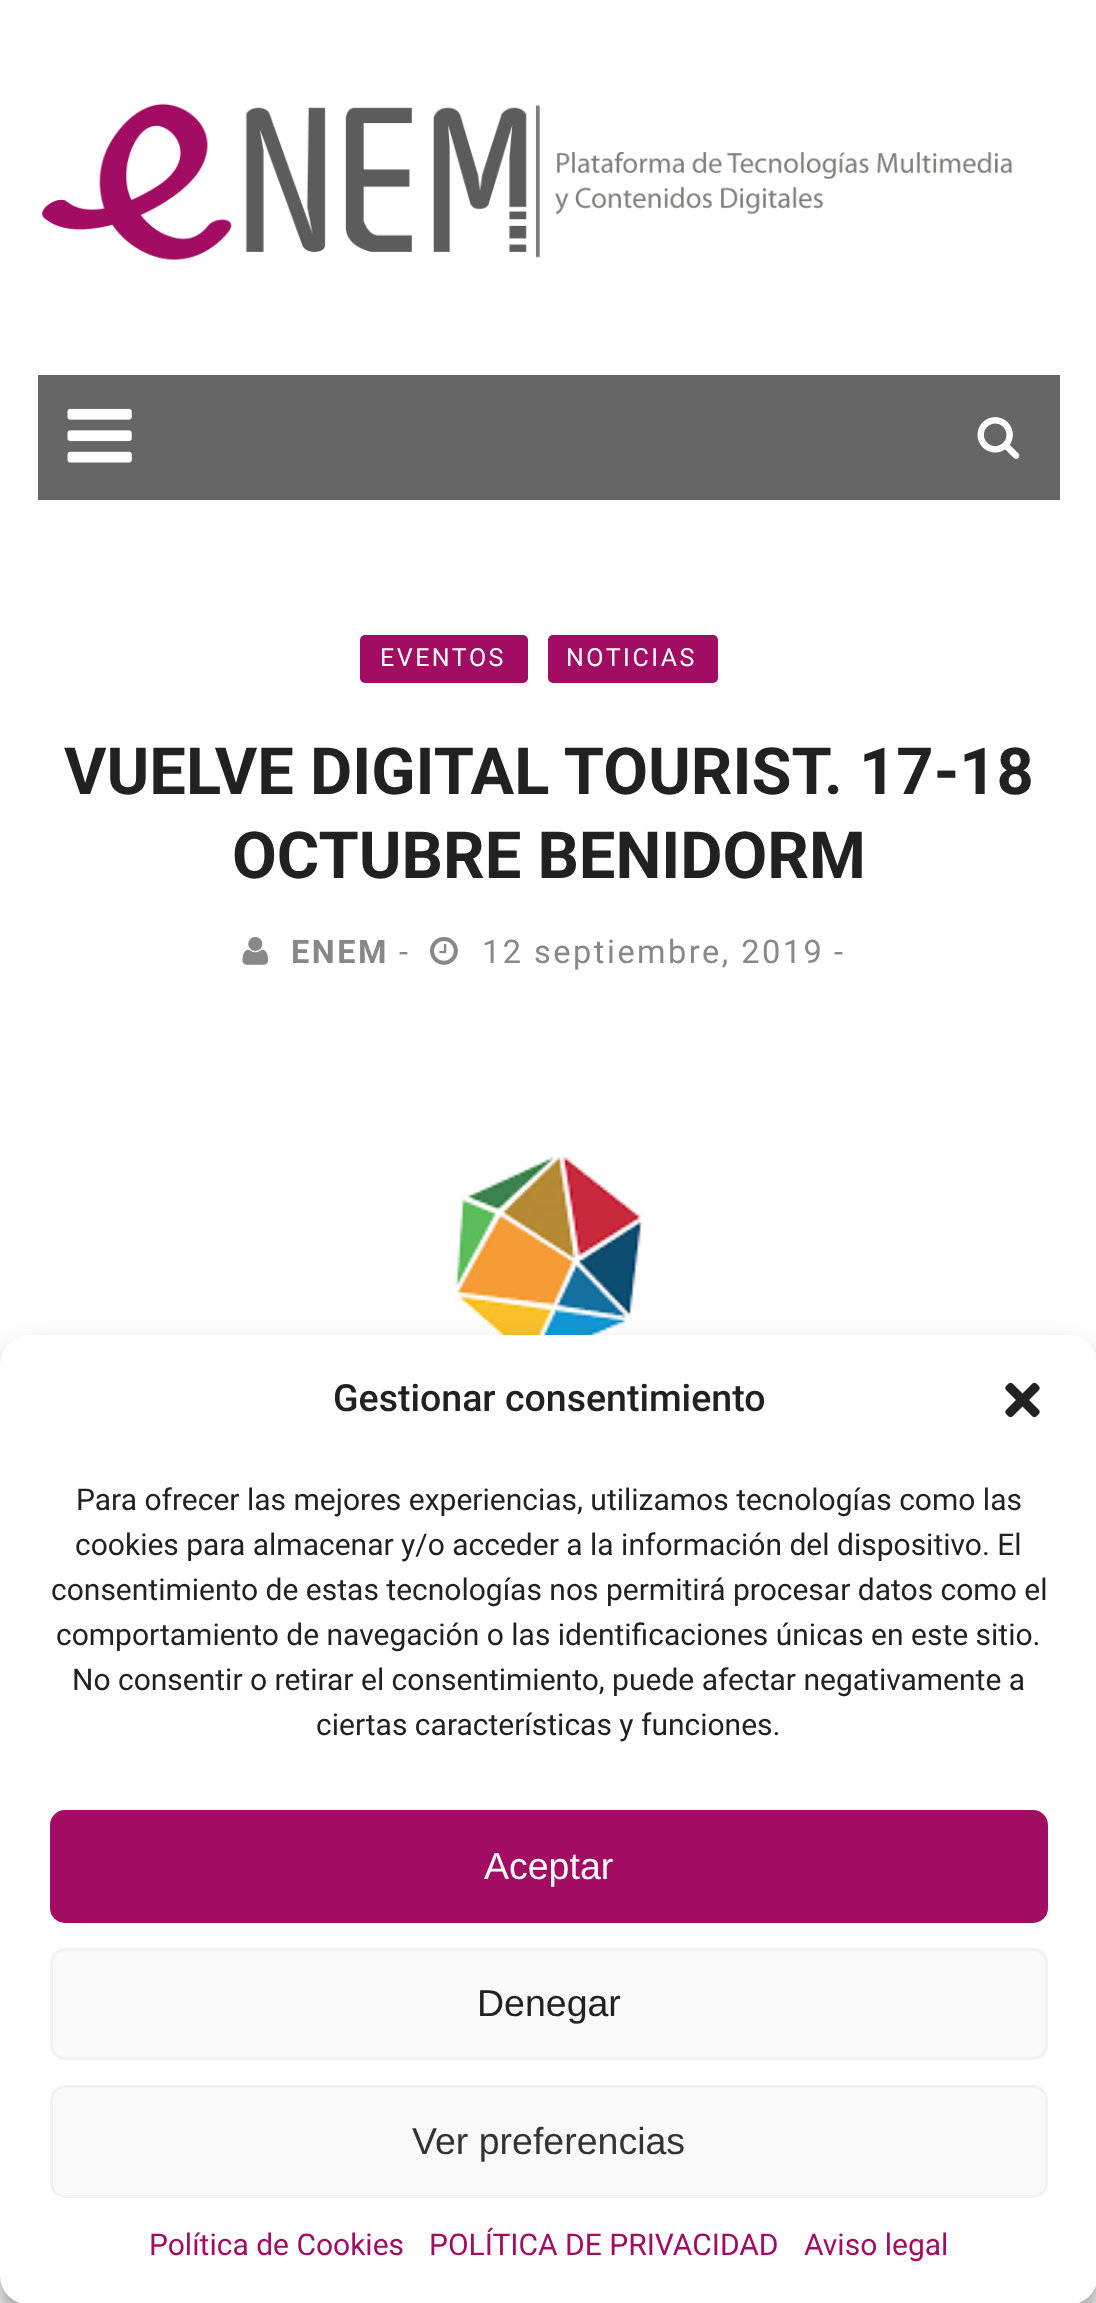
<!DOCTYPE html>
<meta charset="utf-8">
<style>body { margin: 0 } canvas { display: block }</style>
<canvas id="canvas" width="1096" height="2303"></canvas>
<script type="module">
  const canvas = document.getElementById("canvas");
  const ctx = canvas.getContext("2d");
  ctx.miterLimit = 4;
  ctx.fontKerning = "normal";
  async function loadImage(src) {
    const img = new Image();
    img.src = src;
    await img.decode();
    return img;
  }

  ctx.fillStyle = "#ffffff";
  ctx.fillRect(0, 0, 1096, 2303);
  ctx.drawImage(await loadImage("img1.png"), 41, 103, 972, 157);
  ctx.fillStyle = "#666666";
  ctx.fillRect(38, 375, 1022, 125);
  ctx.drawImage(await loadImage("img2.png"), 67, 408, 65, 55);
  ctx.drawImage(await loadImage("img3.png"), 977, 417, 43, 42);
  ctx.fillStyle = "#a20c62";
  ctx.beginPath();
  ctx.roundRect(360, 635, 168, 48, 5);
  ctx.fill();
  ctx.letterSpacing = "2.5px";
  ctx.font = "25px Roboto";
  ctx.fillStyle = "#ffffff";
  ctx.fillText("EVENTOS", 380, 666);
  ctx.fillStyle = "#a20c62";
  ctx.beginPath();
  ctx.roundRect(548, 635, 170, 48, 5);
  ctx.fill();
  ctx.fillStyle = "#ffffff";
  ctx.fillText("NOTICIAS", 566, 666);
  ctx.letterSpacing = "0px";
  ctx.font = "bold 65px Roboto";
  ctx.fillStyle = "#212121";
  ctx.fillText("VUELVE DIGITAL TOURIST. 17-18", 64, 794);
  ctx.fillText("OCTUBRE BENIDORM", 232, 878);
  ctx.drawImage(await loadImage("img4.png"), 242, 937, 26, 28);
  ctx.letterSpacing = "2.5px";
  ctx.font = "bold 32.5px Roboto";
  ctx.fillStyle = "#888888";
  ctx.fillText("ENEM", 291, 963);
  ctx.font = "32.5px Roboto";
  ctx.fillText("-", 399, 963);
  ctx.drawImage(await loadImage("img5.png"), 430, 937, 28, 28);
  ctx.fillText("12 septiembre, 2019", 482, 963);
  ctx.fillText("-", 834, 963);
  ctx.drawImage(await loadImage("img6.png"), 369, 1156, 357, 179);
  ctx.fillStyle = "rgba(0, 0, 0, 0.23)";
  ctx.filter = "blur(7.5px)";
  ctx.beginPath();
  ctx.roundRect(0, 1350, 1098, 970, 30);
  ctx.fill();
  ctx.filter = "none";
  ctx.fillStyle = "rgba(0, 0, 0, 0.19)";
  ctx.filter = "blur(25px)";
  ctx.beginPath();
  ctx.roundRect(0, 1360, 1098, 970, 30);
  ctx.fill();
  ctx.filter = "none";
  ctx.fillStyle = "#ffffff";
  ctx.beginPath();
  ctx.roundRect(0, 1335, 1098, 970, 30);
  ctx.fill();
  ctx.letterSpacing = "0px";
  ctx.font = "500 37.5px Roboto";
  ctx.fillStyle = "#212121";
  ctx.fillText("Gestionar consentimiento", 333, 1411);
  ctx.drawImage(await loadImage("img7.png"), 1005, 1382, 35, 36);
  ctx.font = "30px Roboto";
  ctx.fillText("Para ofrecer las mejores experiencias, utilizamos tecnologías como las", 76, 1510);
  ctx.fillText("cookies para almacenar y/o acceder a la información del dispositivo. El", 75, 1555);
  ctx.fillText("consentimiento de estas tecnologías nos permitirá procesar datos como el", 51, 1600);
  ctx.fillText("comportamiento de navegación o las identificaciones únicas en este sitio.", 56, 1645);
  ctx.fillText("No consentir o retirar el consentimiento, puede afectar negativamente a", 72, 1690);
  ctx.fillText("ciertas características y funciones.", 316, 1735);
  ctx.fillStyle = "#a20c62";
  ctx.beginPath();
  ctx.roundRect(51.5, 1811.5, 995, 110, 13.5);
  ctx.fill();
  ctx.strokeStyle = "#a20c62";
  ctx.lineWidth = 3;
  ctx.stroke();
  ctx.font = "37.5px Liberation Sans";
  ctx.fillStyle = "#ffffff";
  ctx.fillText("Aceptar", 484, 1879);
  ctx.fillStyle = "#f9f9f9";
  ctx.beginPath();
  ctx.roundRect(51.5, 1949.5, 995, 109, 13.5);
  ctx.fill();
  ctx.strokeStyle = "#f2f2f2";
  ctx.stroke();
  ctx.fillStyle = "#212121";
  ctx.fillText("Denegar", 477, 2016);
  ctx.fillStyle = "#f9f9f9";
  ctx.beginPath();
  ctx.roundRect(51.5, 2086.5, 995, 110, 13.5);
  ctx.fill();
  ctx.stroke();
  ctx.fillStyle = "#333333";
  ctx.fillText("Ver preferencias", 412, 2154);
  ctx.font = "30px Roboto";
  ctx.fillStyle = "#a20c62";
  ctx.fillText("Política de Cookies", 149, 2255);
  ctx.fillText("POLÍTICA DE PRIVACIDAD", 429, 2255);
  ctx.fillText("Aviso legal", 804, 2255);
</script>
